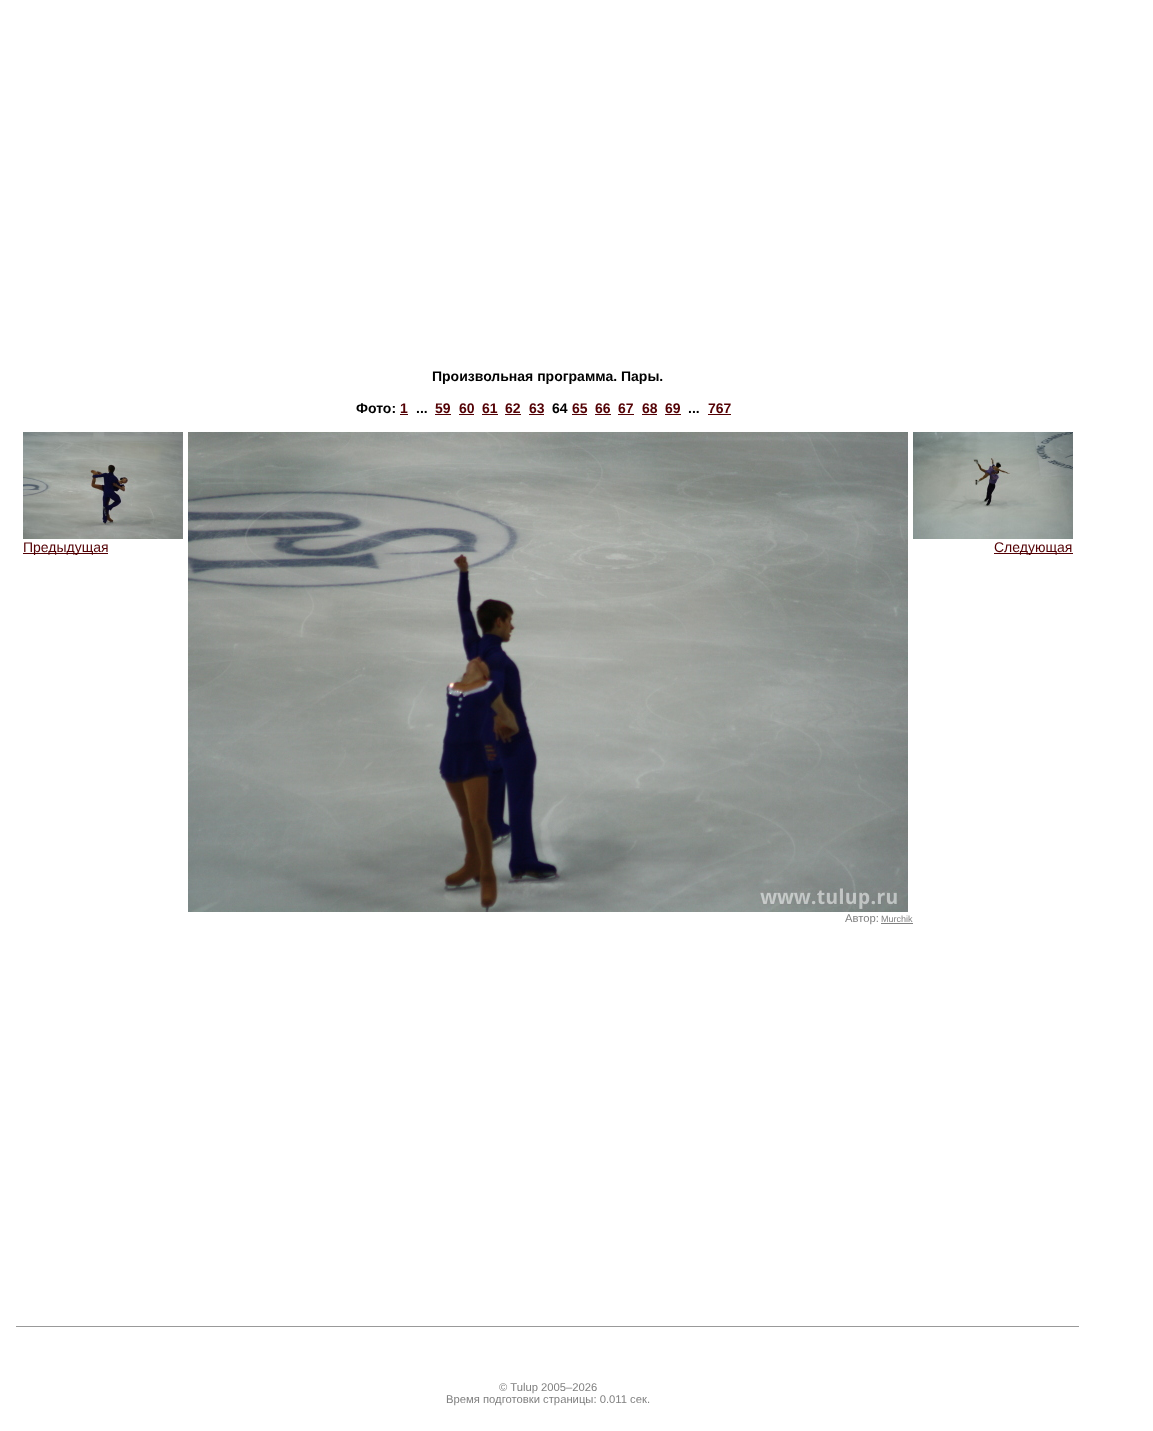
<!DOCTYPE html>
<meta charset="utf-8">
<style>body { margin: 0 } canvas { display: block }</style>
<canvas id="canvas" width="1153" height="1431"></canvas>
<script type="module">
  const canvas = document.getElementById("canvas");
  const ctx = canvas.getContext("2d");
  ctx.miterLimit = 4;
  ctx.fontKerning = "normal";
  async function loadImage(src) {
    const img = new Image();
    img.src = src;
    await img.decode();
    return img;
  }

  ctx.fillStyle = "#ffffff";
  ctx.fillRect(0, 0, 1153, 1431);
  ctx.font = "bold 14px Liberation Sans";
  ctx.fillStyle = "#000000";
  ctx.fillText("Произвольная программа. Пары.", 432, 381);
  ctx.fillText("Фото:", 356, 413);
  ctx.fillStyle = "#530004";
  ctx.fillText("1", 400, 413);
  ctx.fillRect(400, 414, 8, 1);
  ctx.fillStyle = "#000000";
  ctx.fillText("...", 416, 413);
  ctx.fillStyle = "#530004";
  ctx.fillText("59", 435, 413);
  ctx.fillRect(435, 414, 16, 1);
  ctx.fillText("60", 459, 413);
  ctx.fillRect(459, 414, 15, 1);
  ctx.fillText("61", 482, 413);
  ctx.fillRect(482, 414, 16, 1);
  ctx.fillText("62", 505, 413);
  ctx.fillRect(505, 414, 16, 1);
  ctx.fillText("63", 529, 413);
  ctx.fillRect(529, 414, 15, 1);
  ctx.fillStyle = "#000000";
  ctx.fillText("64", 552, 413);
  ctx.fillStyle = "#530004";
  ctx.fillText("65", 572, 413);
  ctx.fillRect(572, 414, 15, 1);
  ctx.fillText("66", 595, 413);
  ctx.fillRect(595, 414, 16, 1);
  ctx.fillText("67", 618, 413);
  ctx.fillRect(618, 414, 16, 1);
  ctx.fillText("68", 642, 413);
  ctx.fillRect(642, 414, 15, 1);
  ctx.fillText("69", 665, 413);
  ctx.fillRect(665, 414, 16, 1);
  ctx.fillStyle = "#000000";
  ctx.fillText("...", 688, 413);
  ctx.fillStyle = "#530004";
  ctx.fillText("767", 708, 413);
  ctx.fillRect(708, 414, 23, 1);
  ctx.drawImage(await loadImage("img1.png"), 23, 432, 160, 107);
  ctx.fillRect(23, 553, 85, 1);
  ctx.font = "14px Liberation Sans";
  ctx.fillText("Предыдущая", 23, 552);
  ctx.drawImage(await loadImage("img2.png"), 913, 432, 160, 107);
  ctx.fillRect(994, 553, 79, 1);
  ctx.fillText("Следующая", 994, 552);
  ctx.drawImage(await loadImage("img3.png"), 188, 432, 720, 480);
  ctx.font = "11.25px Liberation Sans";
  ctx.fillStyle = "#808080";
  ctx.fillText("Автор:", 845, 922);
  ctx.font = "9px Liberation Sans";
  ctx.fillText("Murchik", 881, 922);
  ctx.fillRect(881, 923, 32, 1);
  ctx.fillStyle = "#999999";
  ctx.fillRect(16, 1326, 1063, 1);
  ctx.font = "11.25px Liberation Sans";
  ctx.fillStyle = "#808080";
  ctx.fillText("© Tulup 2005–2026", 499, 1391);
  ctx.fillText("Время подготовки страницы: 0.011 сек.", 446, 1403);
</script>
